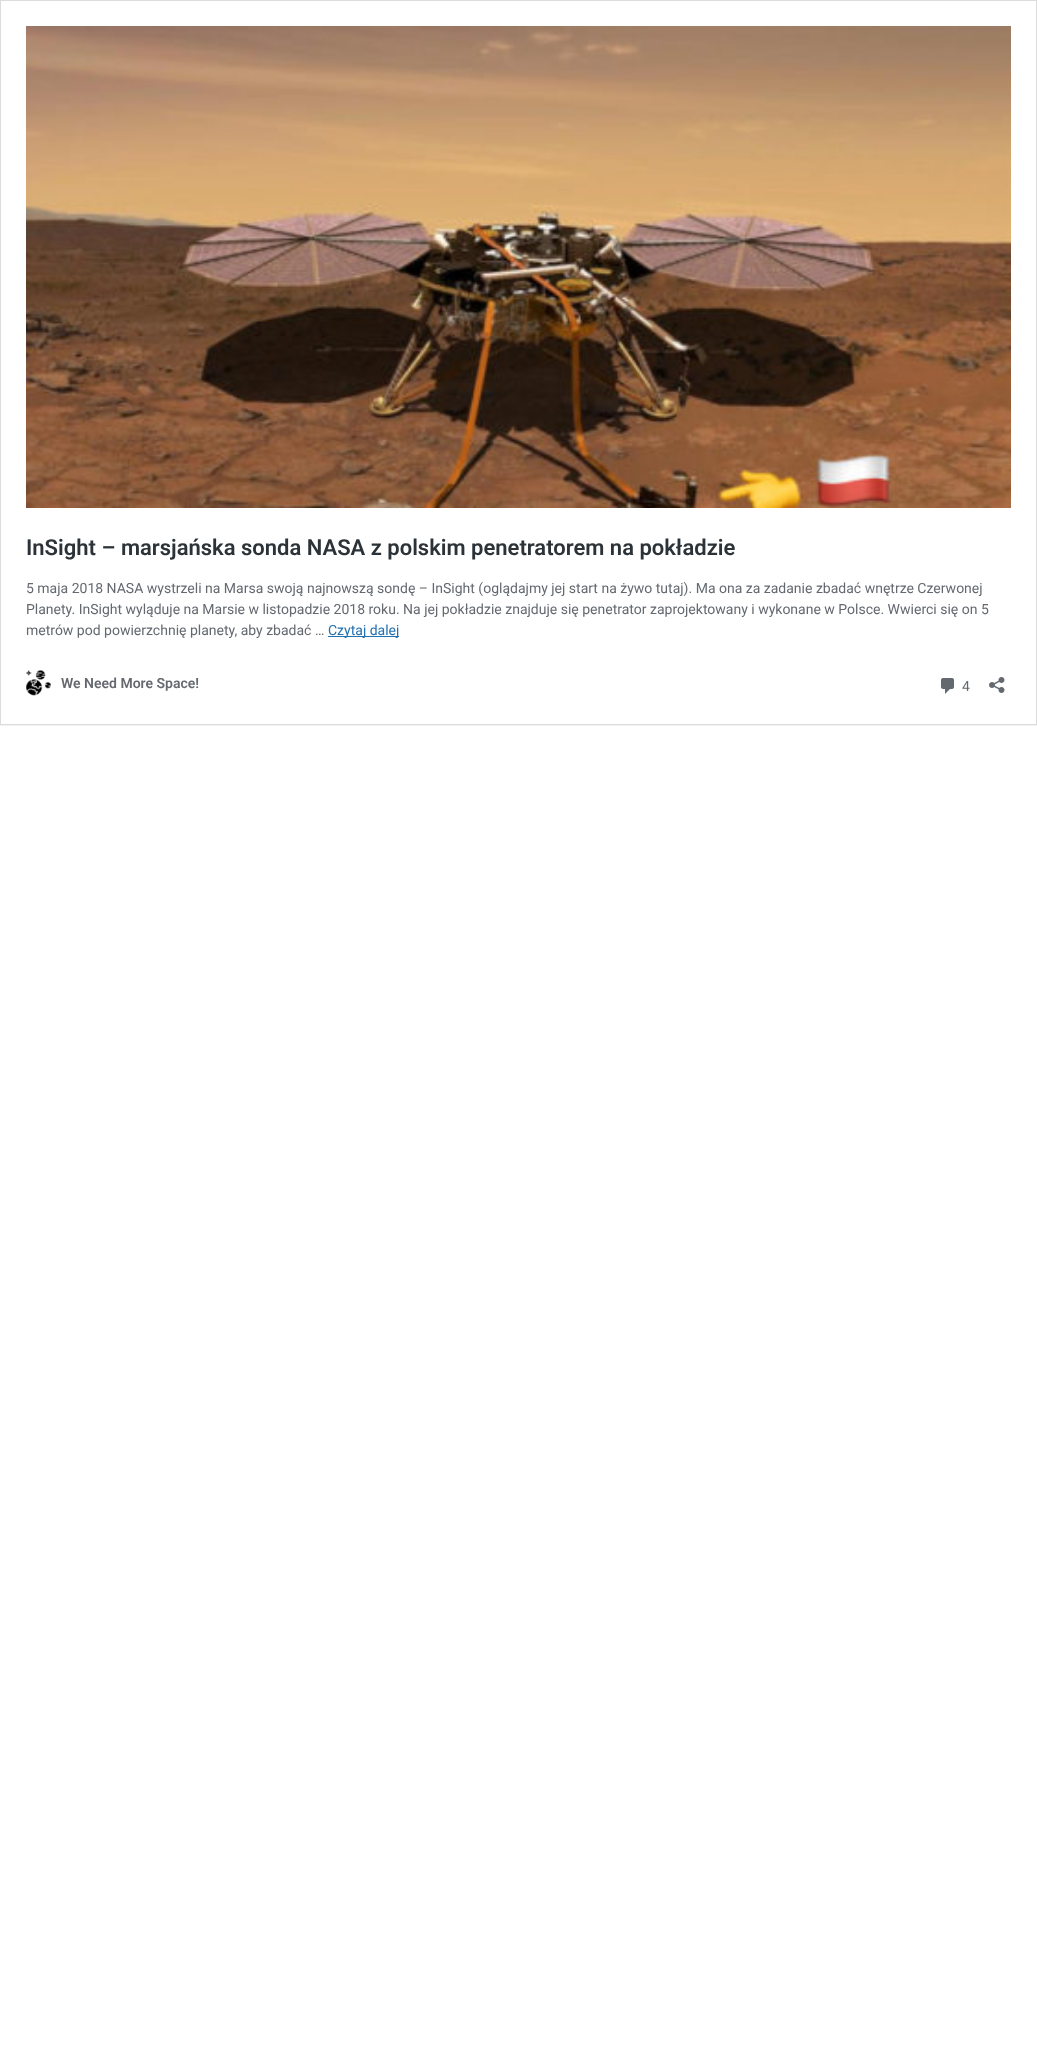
<!DOCTYPE html>
<meta charset="utf-8">
<style>body { margin: 0 } canvas { display: block }</style>
<canvas id="canvas" width="1037" height="2059"></canvas>
<script type="module">
  const canvas = document.getElementById("canvas");
  const ctx = canvas.getContext("2d");
  ctx.miterLimit = 4;
  ctx.fontKerning = "normal";
  async function loadImage(src) {
    const img = new Image();
    img.src = src;
    await img.decode();
    return img;
  }

  ctx.fillStyle = "#ffffff";
  ctx.fillRect(0, 0, 1037, 2059);
  ctx.save();
  ctx.beginPath();
  ctx.rect(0, 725, 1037, 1);
  ctx.clip();
  ctx.fillStyle = "rgba(0, 0, 0, 0.05)";
  ctx.filter = "blur(0.5px)";
  ctx.beginPath();
  ctx.rect(0, 1, 1037, 725);
  ctx.fill();
  ctx.filter = "none";
  ctx.restore();
  ctx.strokeStyle = "#dcdcde";
  ctx.strokeRect(0.5, 0.5, 1036, 724);
  ctx.drawImage(await loadImage("img1.png"), 26, 26, 985, 482);
  ctx.font = "600 22px Roboto";
  ctx.fillStyle = "#2c3338";
  ctx.fillText("InSight – marsjańska sonda NASA z polskim penetratorem na pokładzie", 26, 555);
  ctx.font = "14px Roboto";
  ctx.fillStyle = "#646970";
  ctx.fillText("5 maja 2018 NASA wystrzeli na Marsa swoją najnowszą sondę – InSight (oglądajmy jej start na żywo tutaj). Ma ona za zadanie zbadać wnętrze Czerwonej", 26, 593);
  ctx.fillText("Planety. InSight wyląduje na Marsie w listopadzie 2018 roku. Na jej pokładzie znajduje się penetrator zaprojektowany i wykonane w Polsce. Wwierci się on 5", 26, 614);
  ctx.fillText("metrów pod powierzchnię planety, aby zbadać …", 26, 635);
  ctx.fillStyle = "#2271b1";
  ctx.fillRect(328, 636, 71, 1);
  ctx.fillText("Czytaj dalej", 328, 635);
  ctx.drawImage(await loadImage("img2.png"), 26, 670, 25, 26);
  ctx.font = "600 14px Roboto";
  ctx.fillStyle = "#646970";
  ctx.fillText("We Need More Space!", 61, 688);
  ctx.drawImage(await loadImage("img3.png"), 941, 678, 13, 16);
  ctx.font = "14px Roboto";
  ctx.fillText("4", 962, 691);
  ctx.drawImage(await loadImage("img4.png"), 989, 677, 16, 16);
</script>
